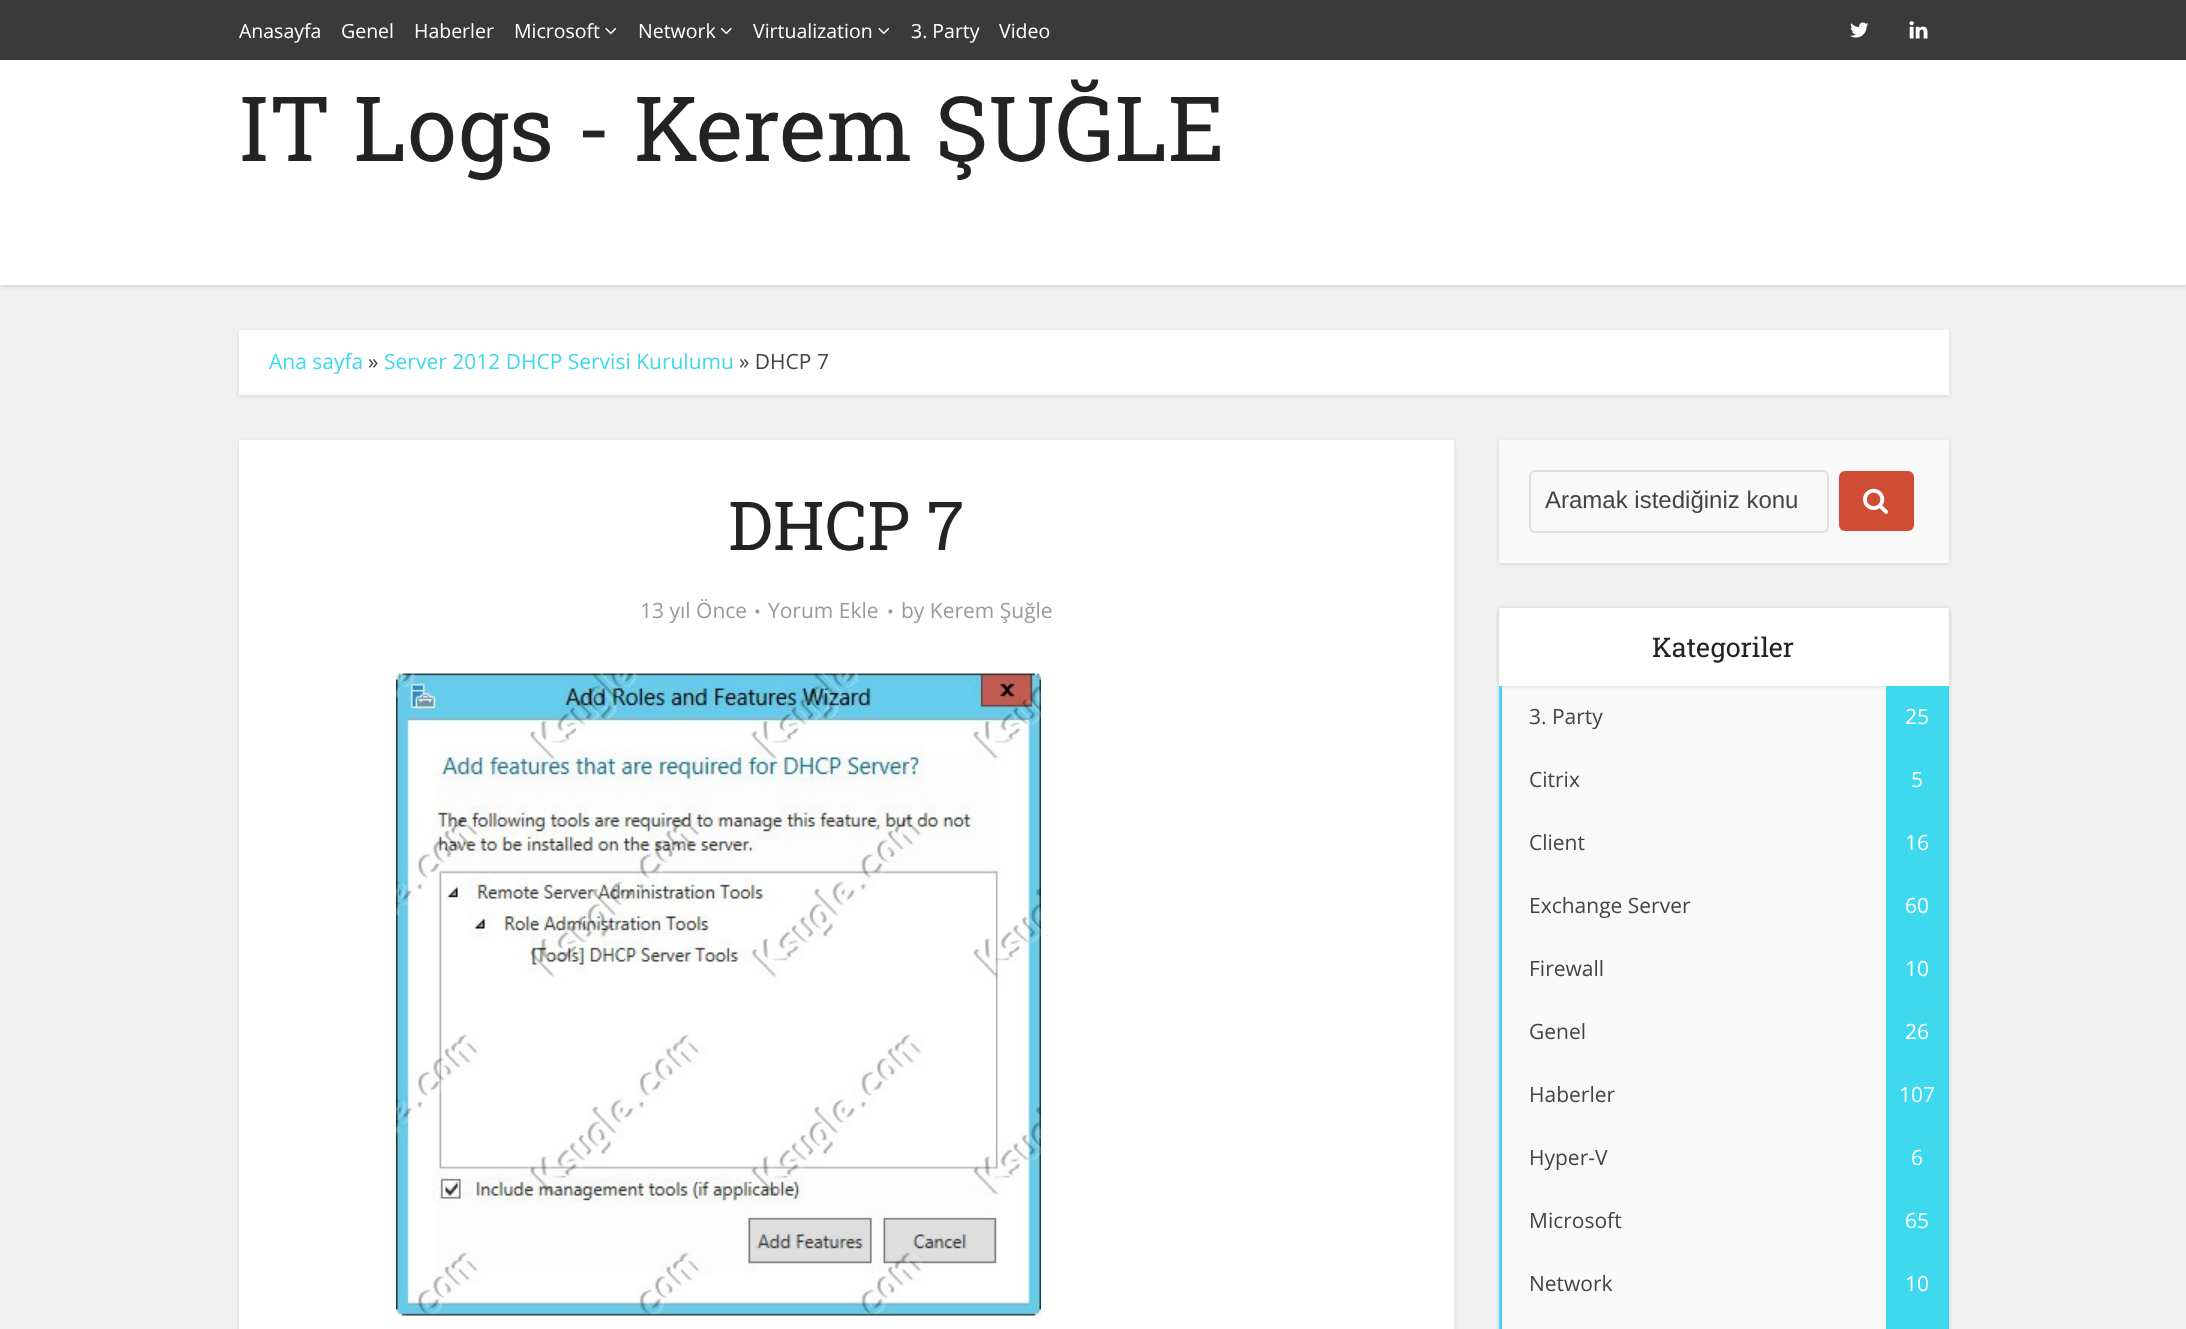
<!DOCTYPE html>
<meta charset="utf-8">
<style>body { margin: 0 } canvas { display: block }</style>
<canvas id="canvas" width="2186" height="1329"></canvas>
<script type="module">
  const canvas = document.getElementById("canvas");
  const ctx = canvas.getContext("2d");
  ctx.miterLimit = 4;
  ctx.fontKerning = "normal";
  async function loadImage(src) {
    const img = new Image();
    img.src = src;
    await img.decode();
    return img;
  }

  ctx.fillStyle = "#f0f0f0";
  ctx.fillRect(0, 0, 2186, 1329);
  ctx.fillStyle = "rgba(0, 0, 0, 0.1)";
  ctx.filter = "blur(2px)";
  ctx.beginPath();
  ctx.rect(0, 2, 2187, 285);
  ctx.fill();
  ctx.filter = "none";
  ctx.fillStyle = "#ffffff";
  ctx.fillRect(0, 60, 2186, 225);
  ctx.fillStyle = "#3a3a3a";
  ctx.fillRect(0, 0, 2186, 60);
  ctx.font = "19.5px Open Sans";
  ctx.fillStyle = "#ffffff";
  ctx.fillText("Anasayfa", 239, 38);
  ctx.fillText("Genel", 341, 38);
  ctx.fillText("Haberler", 414, 38);
  ctx.fillText("Microsoft", 514, 38);
  ctx.drawImage(await loadImage("img1.png"), 605, 27, 12, 8);
  ctx.fillText("Network", 638, 38);
  ctx.drawImage(await loadImage("img2.png"), 720, 27, 12, 8);
  ctx.fillText("Virtualization", 753, 38);
  ctx.drawImage(await loadImage("img1.png"), 878, 27, 12, 8);
  ctx.fillText("3. Party", 911, 38);
  ctx.fillText("Video", 999, 38);
  ctx.drawImage(await loadImage("img3.png"), 1850, 22, 19, 16);
  ctx.drawImage(await loadImage("img4.png"), 1909, 21, 19, 18);
  ctx.font = "90px Roboto Slab";
  ctx.fillStyle = "#232323";
  ctx.fillText("IT Logs - Kerem ŞUĞLE", 239, 161);
  ctx.fillStyle = "rgba(0, 0, 0, 0.1)";
  ctx.filter = "blur(2px)";
  ctx.beginPath();
  ctx.rect(239, 332, 1710, 64);
  ctx.fill();
  ctx.filter = "none";
  ctx.fillStyle = "#ffffff";
  ctx.fillRect(239, 330, 1710, 65);
  ctx.font = "21px Open Sans";
  ctx.fillStyle = "#3ed8ef";
  ctx.fillText("Ana sayfa", 269, 369);
  ctx.fillStyle = "#444444";
  ctx.fillText("»", 368, 369);
  ctx.fillStyle = "#3ed8ef";
  ctx.fillText("Server 2012 DHCP Servisi Kurulumu", 384, 369);
  ctx.fillStyle = "#444444";
  ctx.fillText("» DHCP 7", 739, 369);
  ctx.fillStyle = "rgba(0, 0, 0, 0.1)";
  ctx.filter = "blur(2px)";
  ctx.beginPath();
  ctx.rect(239, 441, 1215, 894);
  ctx.fill();
  ctx.filter = "none";
  ctx.fillStyle = "#ffffff";
  ctx.fillRect(239, 440, 1215, 889);
  ctx.font = "67.5px Roboto Slab";
  ctx.fillStyle = "#232323";
  ctx.fillText("DHCP 7", 728, 550);
  ctx.font = "21px Open Sans";
  ctx.fillStyle = "#9b9b9b";
  ctx.fillText("13 yıl Önce", 640, 618);
  ctx.font = "18px Open Sans";
  ctx.fillText("•", 754, 618);
  ctx.font = "21px Open Sans";
  ctx.fillText("Yorum Ekle", 768, 618);
  ctx.font = "18px Open Sans";
  ctx.fillText("•", 887, 618);
  ctx.font = "21px Open Sans";
  ctx.fillText("by Kerem Şuğle", 901, 618);
  ctx.drawImage(await loadImage("img5.png"), 396, 673, 645, 643);
  ctx.fillStyle = "rgba(0, 0, 0, 0.1)";
  ctx.filter = "blur(2px)";
  ctx.beginPath();
  ctx.rect(1499, 441, 450, 123);
  ctx.fill();
  ctx.filter = "none";
  ctx.fillStyle = "#f9f9f9";
  ctx.fillRect(1499, 440, 450, 123);
  ctx.beginPath();
  ctx.roundRect(1530, 471, 298, 61, 5);
  ctx.strokeStyle = "#e0e0e0";
  ctx.lineWidth = 2;
  ctx.stroke();
  ctx.font = "24px Liberation Sans";
  ctx.fillStyle = "#444444";
  ctx.fillText("Aramak istediğiniz konu", 1545, 508);
  ctx.fillStyle = "#cf4d35";
  ctx.beginPath();
  ctx.roundRect(1839, 471, 75, 60, 6);
  ctx.fill();
  ctx.drawImage(await loadImage("img6.png"), 1863, 488, 25, 26);
  ctx.fillStyle = "rgba(0, 0, 0, 0.1)";
  ctx.filter = "blur(2px)";
  ctx.beginPath();
  ctx.rect(1499, 609, 450, 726);
  ctx.fill();
  ctx.filter = "none";
  ctx.fillStyle = "#f9f9f9";
  ctx.fillRect(1502, 686, 384, 643);
  ctx.fillStyle = "rgba(0, 0, 0, 0.1)";
  ctx.filter = "blur(2px)";
  ctx.beginPath();
  ctx.rect(1499, 609, 450, 78);
  ctx.fill();
  ctx.filter = "none";
  ctx.fillStyle = "#ffffff";
  ctx.fillRect(1499, 608, 450, 78);
  ctx.font = "27px Roboto Slab";
  ctx.fillStyle = "#232323";
  ctx.fillText("Kategoriler", 1652, 657);
  ctx.fillStyle = "#3ed8ef";
  ctx.fillRect(1499, 686, 3, 643);
  ctx.font = "21px Open Sans";
  ctx.fillStyle = "#444444";
  ctx.fillText("3. Party", 1529, 724);
  ctx.fillStyle = "#3ed8ef";
  ctx.fillRect(1886, 686, 63, 643);
  ctx.fillStyle = "#ffffff";
  ctx.fillText("25", 1905, 724);
  ctx.fillStyle = "#444444";
  ctx.fillText("Citrix", 1529, 787);
  ctx.fillStyle = "#ffffff";
  ctx.fillText("5", 1911, 787);
  ctx.fillStyle = "#444444";
  ctx.fillText("Client", 1529, 850);
  ctx.fillStyle = "#ffffff";
  ctx.fillText("16", 1905, 850);
  ctx.fillStyle = "#444444";
  ctx.fillText("Exchange Server", 1529, 913);
  ctx.fillStyle = "#ffffff";
  ctx.fillText("60", 1905, 913);
  ctx.fillStyle = "#444444";
  ctx.fillText("Firewall", 1529, 976);
  ctx.fillStyle = "#ffffff";
  ctx.fillText("10", 1905, 976);
  ctx.fillStyle = "#444444";
  ctx.fillText("Genel", 1529, 1039);
  ctx.fillStyle = "#ffffff";
  ctx.fillText("26", 1905, 1039);
  ctx.fillStyle = "#444444";
  ctx.fillText("Haberler", 1529, 1102);
  ctx.fillStyle = "#ffffff";
  ctx.fillText("107", 1899, 1102);
  ctx.fillStyle = "#444444";
  ctx.fillText("Hyper-V", 1529, 1165);
  ctx.fillStyle = "#ffffff";
  ctx.fillText("6", 1911, 1165);
  ctx.fillStyle = "#444444";
  ctx.fillText("Microsoft", 1529, 1228);
  ctx.fillStyle = "#ffffff";
  ctx.fillText("65", 1905, 1228);
  ctx.fillStyle = "#444444";
  ctx.fillText("Network", 1529, 1291);
  ctx.fillStyle = "#ffffff";
  ctx.fillText("10", 1905, 1291);
</script>
